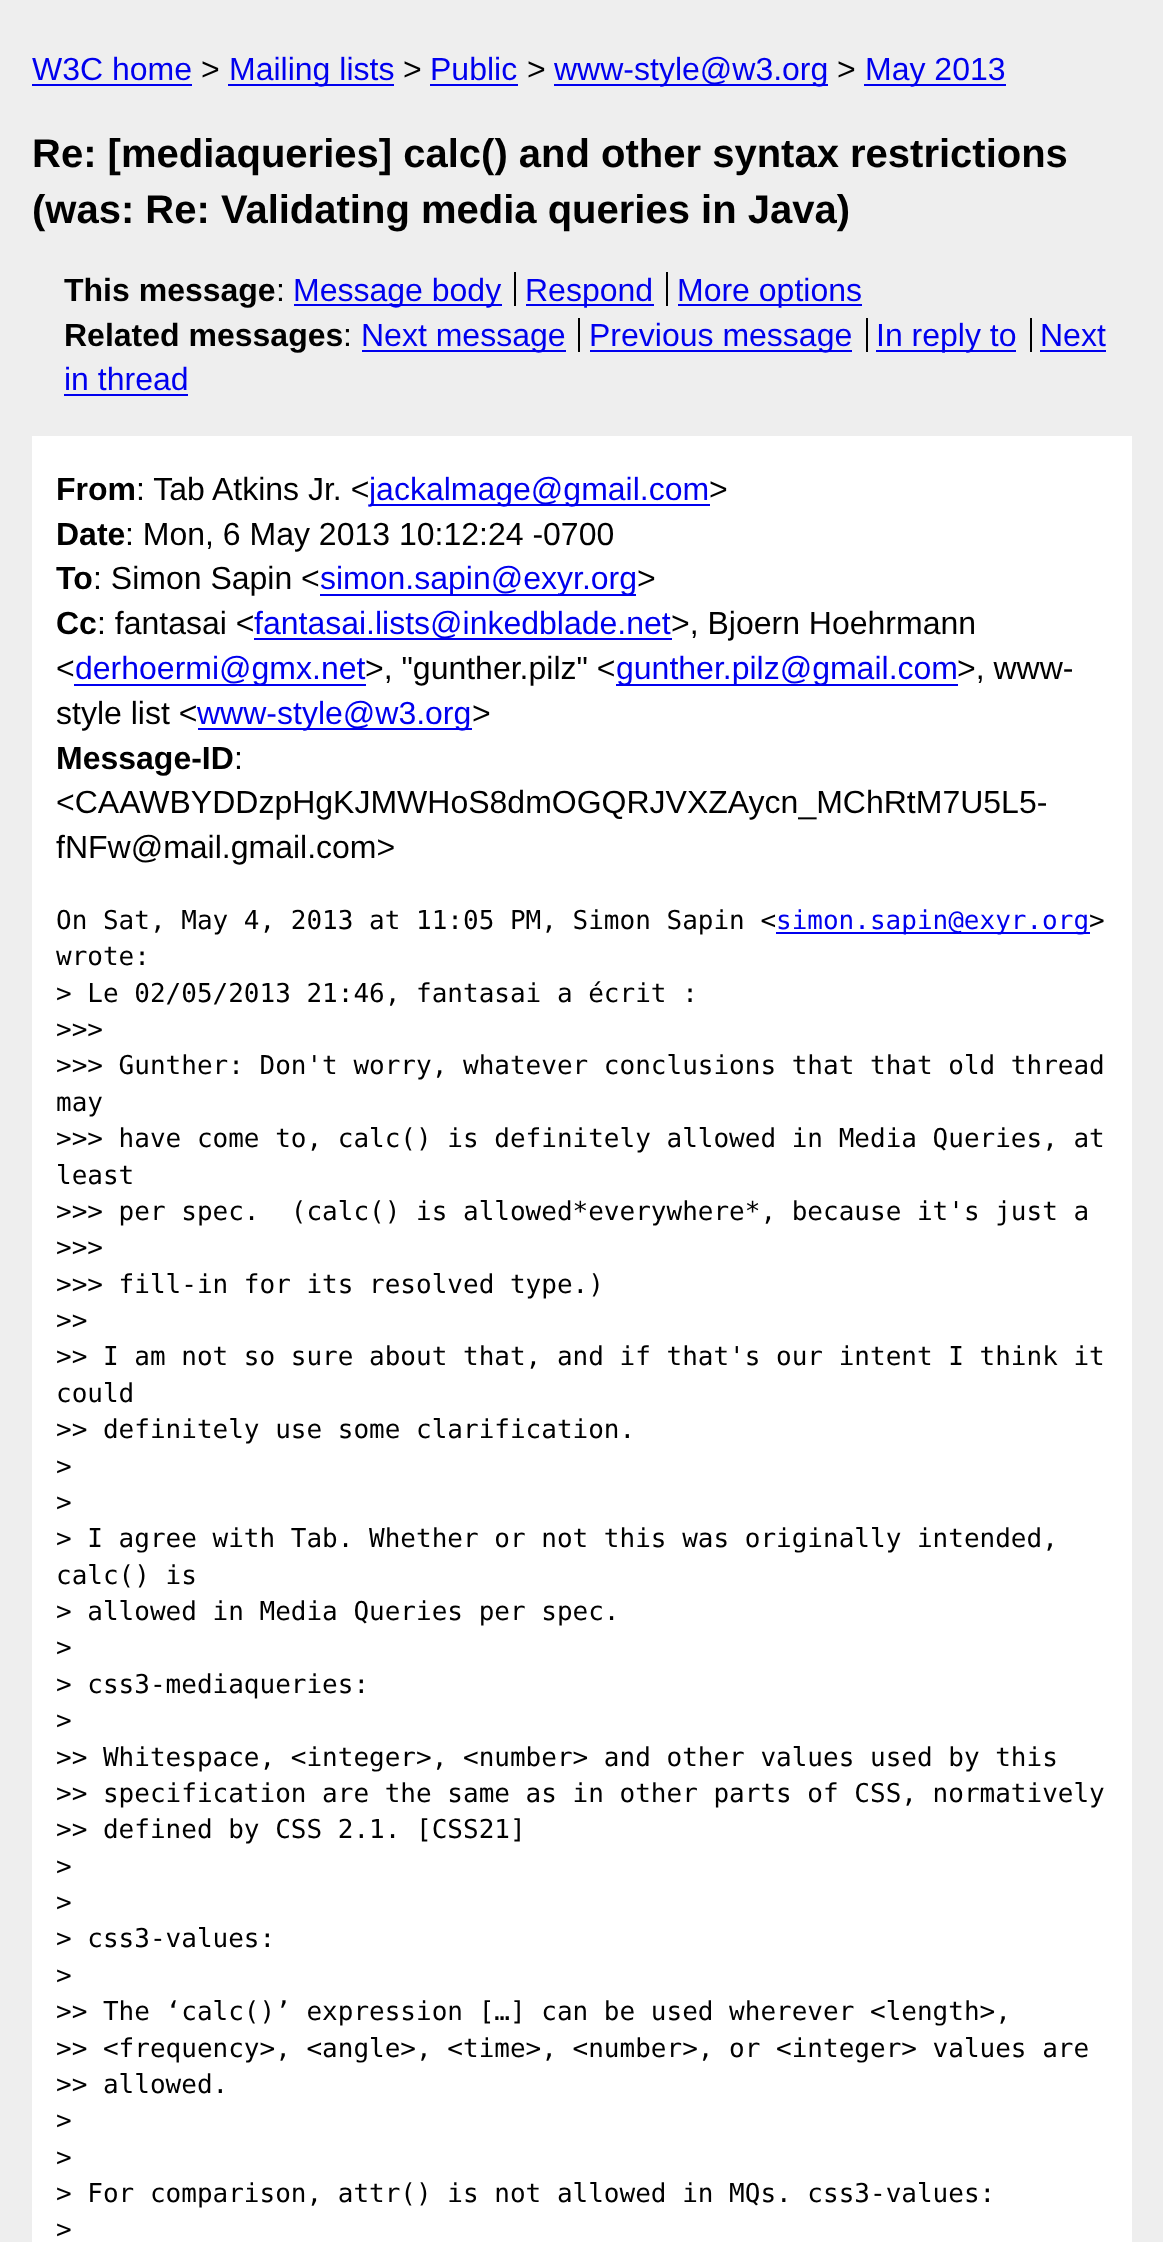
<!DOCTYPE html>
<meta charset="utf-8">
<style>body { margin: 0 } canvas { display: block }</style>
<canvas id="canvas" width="1163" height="2242"></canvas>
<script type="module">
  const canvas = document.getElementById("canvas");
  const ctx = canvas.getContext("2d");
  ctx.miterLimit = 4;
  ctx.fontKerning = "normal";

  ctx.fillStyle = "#eeeeee";
  ctx.fillRect(0, 0, 1163, 2242);
  ctx.font = "32px Liberation Sans";
  ctx.fillStyle = "#0000ee";
  ctx.fillText("W3C home", 32, 80);
  ctx.fillRect(32, 84, 160, 2);
  ctx.fillStyle = "#000000";
  ctx.fillText(">", 201, 80);
  ctx.fillStyle = "#0000ee";
  ctx.fillRect(228, 84, 166, 2);
  ctx.fillText("Mailing lists", 229, 80);
  ctx.fillStyle = "#000000";
  ctx.fillText(">", 403, 80);
  ctx.fillStyle = "#0000ee";
  ctx.fillText("Public", 430, 80);
  ctx.fillRect(430, 84, 88, 2);
  ctx.fillStyle = "#000000";
  ctx.fillText(">", 527, 80);
  ctx.fillStyle = "#0000ee";
  ctx.fillRect(554, 84, 274, 2);
  ctx.fillText("www-style@w3.org", 554, 80);
  ctx.fillStyle = "#000000";
  ctx.fillText(">", 837, 80);
  ctx.fillStyle = "#0000ee";
  ctx.fillRect(864, 84, 142, 2);
  ctx.fillText("May 2013", 865, 80);
  ctx.font = "bold 40px Liberation Sans";
  ctx.fillStyle = "#000000";
  ctx.fillText("Re: [mediaqueries] calc() and other syntax restrictions", 32, 167);
  ctx.fillText("(was: Re: Validating media queries in Java)", 32, 223);
  ctx.font = "bold 32px Liberation Sans";
  ctx.fillText("This message", 64, 301);
  ctx.font = "32px Liberation Sans";
  ctx.fillText(":", 276, 301);
  ctx.fillStyle = "#0000ee";
  ctx.fillRect(294, 304, 208, 2);
  ctx.fillText("Message body", 293, 301);
  ctx.fillRect(526, 304, 128, 2);
  ctx.fillText("Respond", 525, 301);
  ctx.fillStyle = "#000000";
  ctx.fillRect(514, 272, 2, 34);
  ctx.fillStyle = "#0000ee";
  ctx.fillRect(678, 304, 184, 2);
  ctx.fillText("More options", 677, 301);
  ctx.fillStyle = "#000000";
  ctx.fillRect(666, 272, 2, 34);
  ctx.font = "bold 32px Liberation Sans";
  ctx.fillText("Related messages", 64, 346);
  ctx.font = "32px Liberation Sans";
  ctx.fillText(":", 343, 346);
  ctx.fillStyle = "#0000ee";
  ctx.fillRect(362, 350, 204, 2);
  ctx.fillText("Next message", 361, 346);
  ctx.fillRect(590, 350, 262, 2);
  ctx.fillText("Previous message", 589, 346);
  ctx.fillStyle = "#000000";
  ctx.fillRect(578, 318, 2, 34);
  ctx.fillStyle = "#0000ee";
  ctx.fillRect(876, 350, 140, 2);
  ctx.fillText("In reply to", 876, 346);
  ctx.fillStyle = "#000000";
  ctx.fillRect(866, 318, 2, 34);
  ctx.fillStyle = "#0000ee";
  ctx.fillText("Next", 1040, 346);
  ctx.fillStyle = "#000000";
  ctx.fillRect(1030, 318, 2, 34);
  ctx.fillStyle = "#0000ee";
  ctx.fillRect(1040, 350, 66, 2);
  ctx.fillText("in thread", 64, 390);
  ctx.fillRect(64, 394, 124, 2);
  ctx.fillStyle = "#ffffff";
  ctx.fillRect(32, 436, 1100, 1806);
  ctx.font = "bold 32px Liberation Sans";
  ctx.fillStyle = "#000000";
  ctx.fillText("From", 56, 500);
  ctx.font = "32px Liberation Sans";
  ctx.fillText(": Tab Atkins Jr. <", 136, 500);
  ctx.fillStyle = "#0000ee";
  ctx.fillRect(370, 504, 340, 2);
  ctx.fillText("jackalmage@gmail.com", 369, 500);
  ctx.fillStyle = "#000000";
  ctx.fillText(">", 709, 500);
  ctx.font = "bold 32px Liberation Sans";
  ctx.fillText("Date", 56, 545);
  ctx.font = "32px Liberation Sans";
  ctx.fillText(": Mon, 6 May 2013 10:12:24 -0700", 125, 545);
  ctx.font = "bold 32px Liberation Sans";
  ctx.fillText("To", 56, 589);
  ctx.font = "32px Liberation Sans";
  ctx.fillText(": Simon Sapin <", 93, 589);
  ctx.fillStyle = "#0000ee";
  ctx.fillRect(320, 594, 316, 2);
  ctx.fillText("simon.sapin@exyr.org", 320, 589);
  ctx.fillStyle = "#000000";
  ctx.fillText(">", 637, 589);
  ctx.font = "bold 32px Liberation Sans";
  ctx.fillText("Cc", 56, 634);
  ctx.font = "32px Liberation Sans";
  ctx.fillText(": fantasai <", 97, 634);
  ctx.fillStyle = "#0000ee";
  ctx.fillRect(254, 638, 418, 2);
  ctx.fillText("fantasai.lists@inkedblade.net", 254, 634);
  ctx.fillStyle = "#000000";
  ctx.fillText(">, Bjoern Hoehrmann", 671, 634);
  ctx.fillText("<", 56, 679);
  ctx.fillStyle = "#0000ee";
  ctx.fillRect(74, 684, 292, 2);
  ctx.fillText("derhoermi@gmx.net", 75, 679);
  ctx.fillStyle = "#000000";
  ctx.fillText(">, \"gunther.pilz\" <", 365, 679);
  ctx.fillStyle = "#0000ee";
  ctx.fillRect(616, 684, 342, 2);
  ctx.fillText("gunther.pilz@gmail.com", 616, 679);
  ctx.fillStyle = "#000000";
  ctx.fillText(">, www-", 957, 679);
  ctx.fillText("style list <", 56, 724);
  ctx.fillStyle = "#0000ee";
  ctx.fillRect(198, 728, 274, 2);
  ctx.fillText("www-style@w3.org", 197, 724);
  ctx.fillStyle = "#000000";
  ctx.fillText(">", 472, 724);
  ctx.font = "bold 32px Liberation Sans";
  ctx.fillText("Message-ID", 56, 769);
  ctx.font = "32px Liberation Sans";
  ctx.fillText(":", 234, 769);
  ctx.fillText("<CAAWBYDDzpHgKJMWHoS8dmOGQRJVXZAycn_MChRtM7U5L5-", 56, 813);
  ctx.fillText("fNFw@mail.gmail.com>", 56, 858);
  ctx.font = "26px DejaVu Sans Mono";
  ctx.fillText("On Sat, May 4, 2013 at 11:05 PM, Simon Sapin <", 56, 929);
  ctx.fillStyle = "#0000ee";
  ctx.fillRect(776, 932, 314, 2);
  ctx.fillText("simon.sapin@exyr.org", 776, 929);
  ctx.fillStyle = "#000000";
  ctx.fillText(">", 1089, 929);
  ctx.fillText("wrote:", 56, 965);
  ctx.fillText("> Le 02/05/2013 21:46, fantasai a écrit :", 56, 1002);
  ctx.fillText(">>>", 56, 1038);
  ctx.fillText(">>> Gunther: Don't worry, whatever conclusions that that old thread", 56, 1074);
  ctx.fillText("may", 56, 1111);
  ctx.fillText(">>> have come to, calc() is definitely allowed in Media Queries, at", 56, 1147);
  ctx.fillText("least", 56, 1184);
  ctx.fillText(">>> per spec.  (calc() is allowed*everywhere*, because it's just a", 56, 1220);
  ctx.fillText(">>>", 56, 1256);
  ctx.fillText(">>> fill-in for its resolved type.)", 56, 1293);
  ctx.fillText(">>", 56, 1329);
  ctx.fillText(">> I am not so sure about that, and if that's our intent I think it", 56, 1365);
  ctx.fillText("could", 56, 1402);
  ctx.fillText(">> definitely use some clarification.", 56, 1438);
  ctx.fillText(">", 56, 1475);
  ctx.fillText(">", 56, 1511);
  ctx.fillText("> I agree with Tab. Whether or not this was originally intended,", 56, 1547);
  ctx.fillText("calc() is", 56, 1584);
  ctx.fillText("> allowed in Media Queries per spec.", 56, 1620);
  ctx.fillText(">", 56, 1656);
  ctx.fillText("> css3-mediaqueries:", 56, 1693);
  ctx.fillText(">", 56, 1729);
  ctx.fillText(">> Whitespace, <integer>, <number> and other values used by this", 56, 1766);
  ctx.fillText(">> specification are the same as in other parts of CSS, normatively", 56, 1802);
  ctx.fillText(">> defined by CSS 2.1. [CSS21]", 56, 1838);
  ctx.fillText(">", 56, 1875);
  ctx.fillText(">", 56, 1911);
  ctx.fillText("> css3-values:", 56, 1947);
  ctx.fillText(">", 56, 1984);
  ctx.fillText(">> The ‘calc()’ expression […] can be used wherever <length>,", 56, 2020);
  ctx.fillText(">> <frequency>, <angle>, <time>, <number>, or <integer> values are", 56, 2057);
  ctx.fillText(">> allowed.", 56, 2093);
  ctx.fillText(">", 56, 2129);
  ctx.fillText(">", 56, 2166);
  ctx.fillText("> For comparison, attr() is not allowed in MQs. css3-values:", 56, 2202);
  ctx.fillText(">", 56, 2238);
</script>
